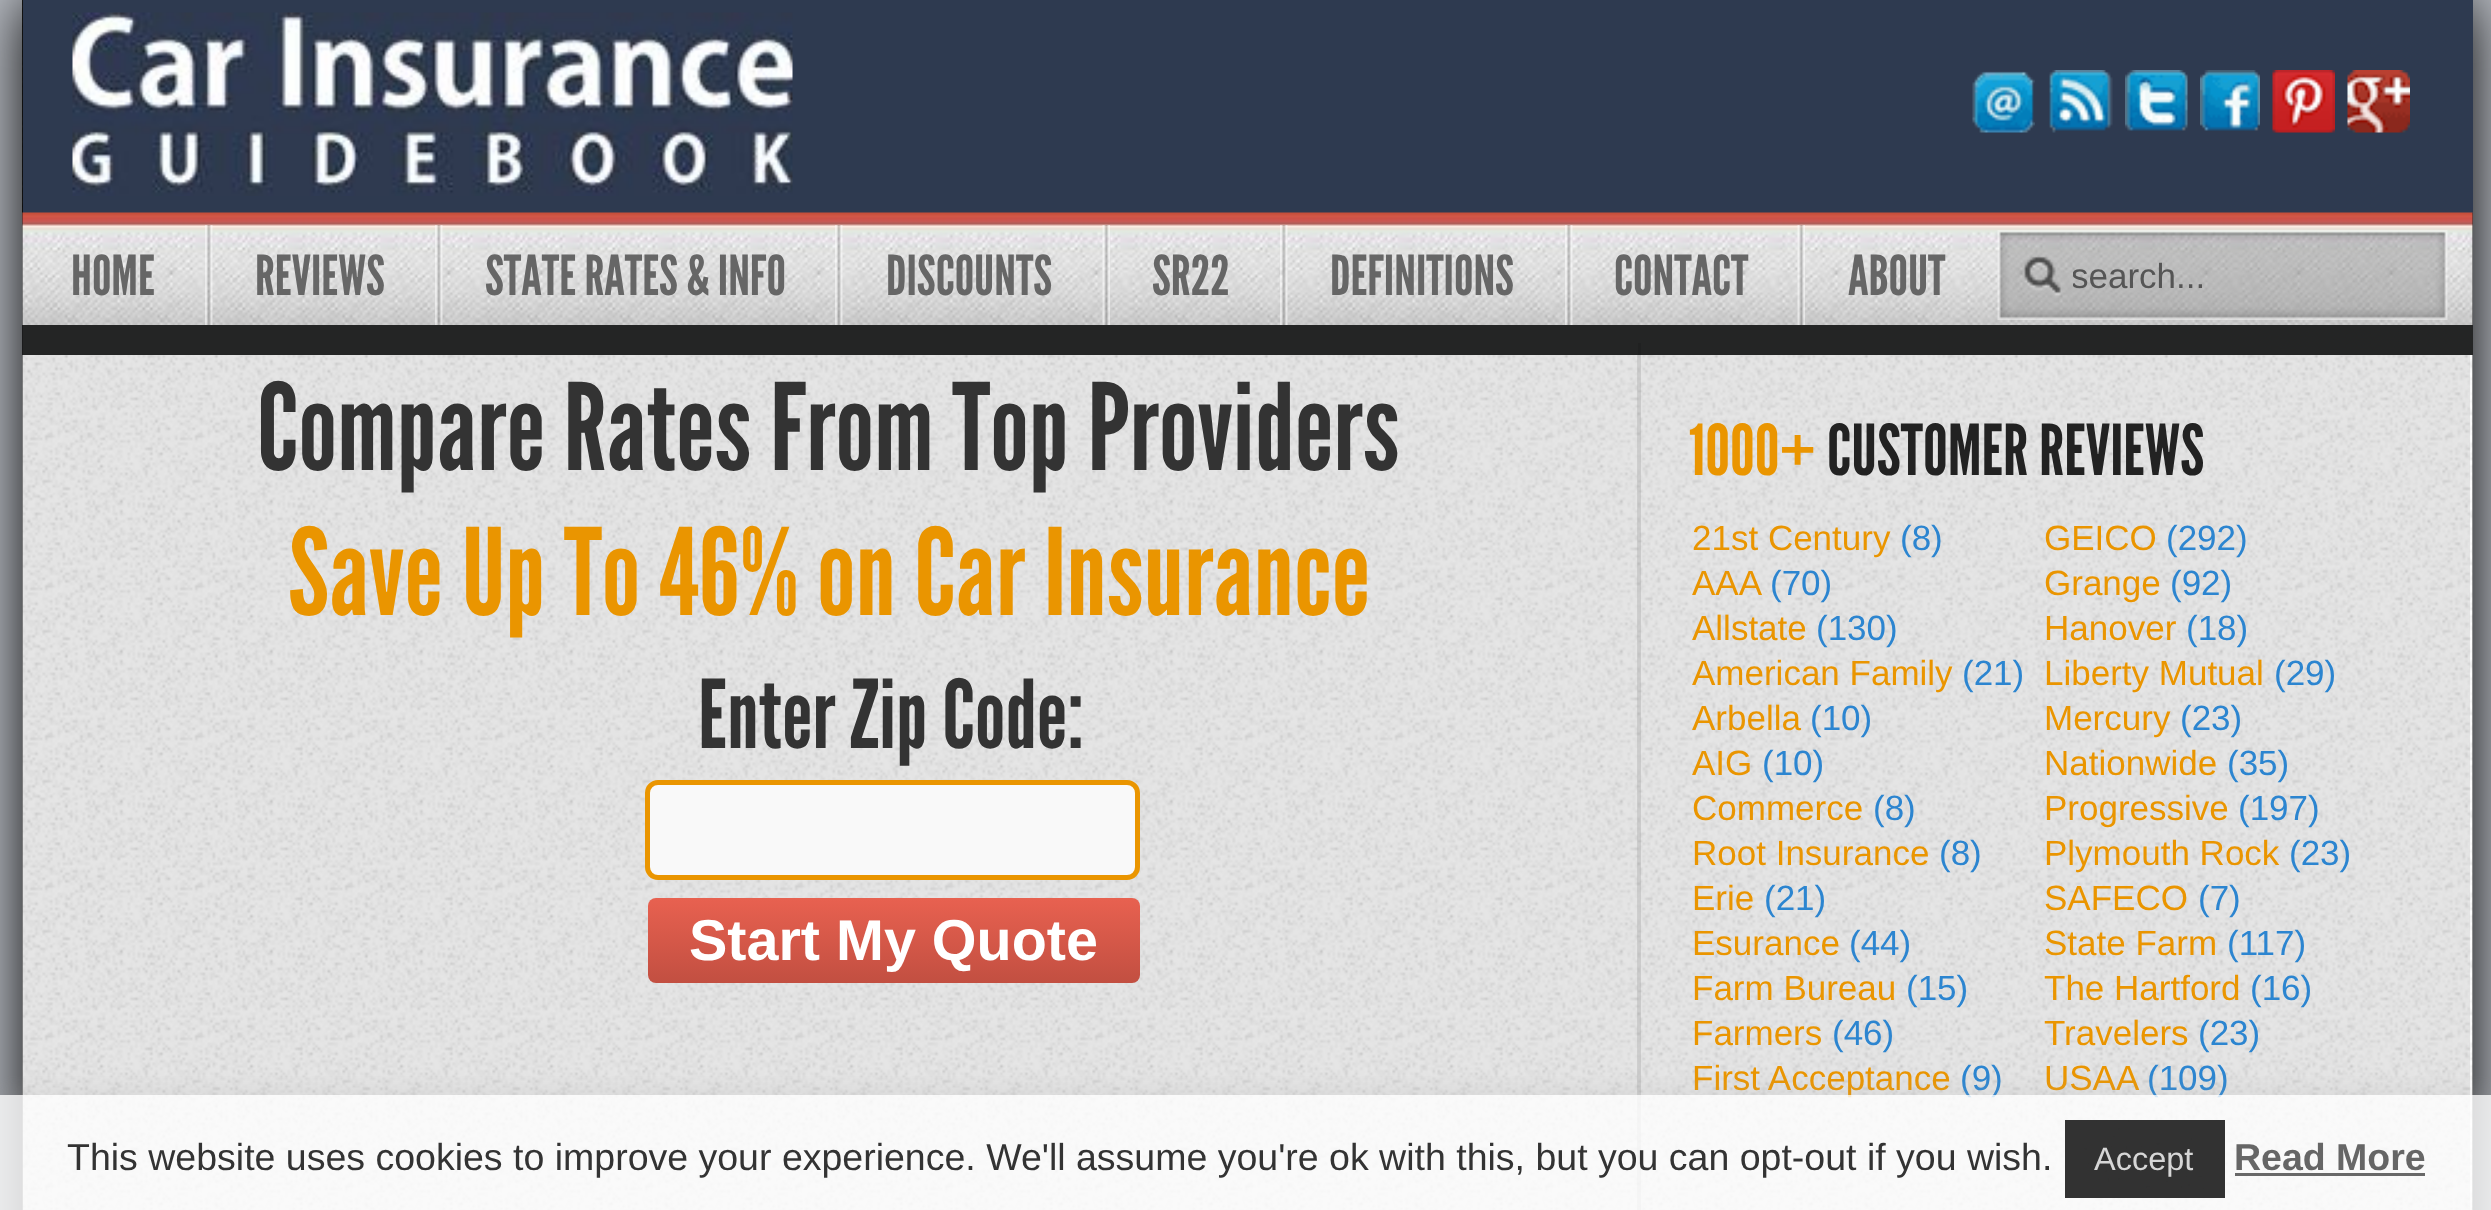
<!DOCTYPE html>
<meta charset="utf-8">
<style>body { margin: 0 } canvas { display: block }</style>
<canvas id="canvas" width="2491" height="1210"></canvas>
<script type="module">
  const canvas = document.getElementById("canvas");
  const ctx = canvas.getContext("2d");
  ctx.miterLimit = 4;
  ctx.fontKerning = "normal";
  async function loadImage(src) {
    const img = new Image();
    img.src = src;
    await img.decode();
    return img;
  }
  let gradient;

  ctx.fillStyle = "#b9bdc4";
  ctx.fillRect(0, 0, 2491, 1210);
  ctx.save();
  ctx.beginPath();
  ctx.moveTo(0, 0);
  ctx.lineTo(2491, 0);
  ctx.lineTo(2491, 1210);
  ctx.lineTo(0, 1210);
  ctx.closePath();
  ctx.moveTo(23, 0);
  ctx.lineTo(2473, 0);
  ctx.lineTo(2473, 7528);
  ctx.lineTo(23, 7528);
  ctx.closePath();
  ctx.clip("evenodd");
  ctx.fillStyle = "#000000";
  ctx.filter = "blur(31px)";
  ctx.beginPath();
  ctx.rect(23, 0, 2450, 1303);
  ctx.fill();
  ctx.filter = "none";
  ctx.restore();
  ctx.fillStyle = "rgba(20, 20, 20, 0.9)";
  ctx.fillRect(22, 0, 2451, 1210);
  ctx.drawImage(await loadImage("img1.png"), 22, 0, 1, 213);
  ctx.fillStyle = "#2e3a50";
  ctx.fillRect(23, 0, 2450, 213);
  ctx.drawImage(await loadImage("img2.png"), 72, 12, 721, 184);
  ctx.drawImage(await loadImage("img3.png"), 1972, 71, 63, 62);
  ctx.drawImage(await loadImage("img4.png"), 2049, 70, 64, 63);
  ctx.drawImage(await loadImage("img5.png"), 2125, 70, 63, 61);
  ctx.drawImage(await loadImage("img6.png"), 2200, 70, 60, 61);
  ctx.drawImage(await loadImage("img7.png"), 2272, 70, 63, 63);
  ctx.drawImage(await loadImage("img8.png"), 2347, 70, 63, 63);
  ctx.drawImage(await loadImage("img9.png"), 22, 212, 2451, 113);
  ctx.font = "55px League Gothic";
  ctx.fillStyle = "#666666";
  ctx.fillText("HOME", 71, 295);
  ctx.drawImage(await loadImage("img10.png"), 205, 225, 8, 100);
  ctx.fillText("REVIEWS", 255, 295);
  ctx.drawImage(await loadImage("img11.png"), 435, 225, 8, 100);
  ctx.fillText("STATE RATES & INFO", 485, 295);
  ctx.drawImage(await loadImage("img12.png"), 835, 225, 8, 100);
  ctx.fillText("DISCOUNTS", 886, 295);
  ctx.drawImage(await loadImage("img13.png"), 1102, 225, 8, 100);
  ctx.fillText("SR22", 1152, 295);
  ctx.drawImage(await loadImage("img14.png"), 1280, 225, 8, 100);
  ctx.fillText("DEFINITIONS", 1330, 295);
  ctx.drawImage(await loadImage("img15.png"), 1565, 225, 8, 100);
  ctx.fillText("CONTACT", 1614, 295);
  ctx.drawImage(await loadImage("img16.png"), 1797, 225, 8, 100);
  ctx.fillText("ABOUT", 1848, 295);
  ctx.drawImage(await loadImage("img17.png"), 1997, 230, 451, 90);
  ctx.save();
  ctx.beginPath();
  ctx.rect(2073, 255, 312, 40);
  ctx.clip();
  ctx.font = "35px Liberation Sans";
  ctx.fillStyle = "#555555";
  ctx.fillText("search...", 2071, 288);
  ctx.restore();
  ctx.drawImage(await loadImage("img18.png"), 22, 355, 2451, 855);
  ctx.fillStyle = "rgba(20, 20, 20, 0.1)";
  ctx.fillRect(22, 355, 1616, 855);
  ctx.font = "120px League Gothic";
  ctx.fillStyle = "#333333";
  ctx.fillText("Compare Rates From Top Providers", 257, 470);
  ctx.fillStyle = "#ea9500";
  ctx.fillText("Save Up To 46% on Car Insurance", 288, 615);
  ctx.font = "94.5px League Gothic";
  ctx.fillStyle = "#333333";
  ctx.fillText("Enter Zip Code:", 698, 748);
  ctx.fillStyle = "#f9f9f9";
  ctx.beginPath();
  ctx.roundRect(647.5, 782.5, 490, 95, 10.5);
  ctx.fill();
  ctx.strokeStyle = "#ea9500";
  ctx.lineWidth = 5;
  ctx.stroke();
  gradient = ctx.createLinearGradient(894, 898, 894, 983);
  gradient.addColorStop(0, "#e86150");
  gradient.addColorStop(1, "#c24f41");
  ctx.fillStyle = gradient;
  ctx.beginPath();
  ctx.roundRect(648, 898, 492, 85, 8);
  ctx.fill();
  ctx.font = "bold 57.5px Liberation Sans";
  ctx.fillStyle = "#ffffff";
  ctx.fillText("Start My Quote", 689, 960);
  ctx.fillStyle = "rgba(20, 20, 20, 0.1)";
  ctx.fillRect(1637, 355, 833, 855);
  ctx.fillStyle = "rgba(0, 0, 0, 0.1)";
  ctx.fillRect(1638, 343, 3, 867);
  ctx.font = "70px League Gothic";
  ctx.fillStyle = "#ea9500";
  ctx.fillText("1000+", 1689, 475);
  ctx.fillStyle = "#222222";
  ctx.fillText("CUSTOMER REVIEWS", 1827, 475);
  ctx.font = "35px Liberation Sans";
  ctx.fillStyle = "#ea9500";
  ctx.fillText("21st Century", 1692, 550);
  ctx.fillStyle = "#2c85d0";
  ctx.fillText("(8)", 1900, 550);
  ctx.fillStyle = "#ea9500";
  ctx.fillText("AAA", 1692, 595);
  ctx.fillStyle = "#2c85d0";
  ctx.fillText("(70)", 1770, 595);
  ctx.fillStyle = "#ea9500";
  ctx.fillText("Allstate", 1692, 640);
  ctx.fillStyle = "#2c85d0";
  ctx.fillText("(130)", 1816, 640);
  ctx.fillStyle = "#ea9500";
  ctx.fillText("American Family", 1692, 685);
  ctx.fillStyle = "#2c85d0";
  ctx.fillText("(21)", 1962, 685);
  ctx.fillStyle = "#ea9500";
  ctx.fillText("Arbella", 1692, 730);
  ctx.fillStyle = "#2c85d0";
  ctx.fillText("(10)", 1810, 730);
  ctx.fillStyle = "#ea9500";
  ctx.fillText("AIG", 1692, 775);
  ctx.fillStyle = "#2c85d0";
  ctx.fillText("(10)", 1762, 775);
  ctx.fillStyle = "#ea9500";
  ctx.fillText("Commerce", 1692, 820);
  ctx.fillStyle = "#2c85d0";
  ctx.fillText("(8)", 1873, 820);
  ctx.fillStyle = "#ea9500";
  ctx.fillText("Root Insurance", 1692, 865);
  ctx.fillStyle = "#2c85d0";
  ctx.fillText("(8)", 1939, 865);
  ctx.fillStyle = "#ea9500";
  ctx.fillText("Erie", 1692, 910);
  ctx.fillStyle = "#2c85d0";
  ctx.fillText("(21)", 1764, 910);
  ctx.fillStyle = "#ea9500";
  ctx.fillText("Esurance", 1692, 955);
  ctx.fillStyle = "#2c85d0";
  ctx.fillText("(44)", 1849, 955);
  ctx.fillStyle = "#ea9500";
  ctx.fillText("Farm Bureau", 1692, 1000);
  ctx.fillStyle = "#2c85d0";
  ctx.fillText("(15)", 1906, 1000);
  ctx.fillStyle = "#ea9500";
  ctx.fillText("Farmers", 1692, 1045);
  ctx.fillStyle = "#2c85d0";
  ctx.fillText("(46)", 1832, 1045);
  ctx.fillStyle = "#ea9500";
  ctx.fillText("First Acceptance", 1692, 1090);
  ctx.fillStyle = "#2c85d0";
  ctx.fillText("(9)", 1960, 1090);
  ctx.fillStyle = "#ea9500";
  ctx.fillText("GEICO", 2044, 550);
  ctx.fillStyle = "#2c85d0";
  ctx.fillText("(292)", 2166, 550);
  ctx.fillStyle = "#ea9500";
  ctx.fillText("Grange", 2044, 595);
  ctx.fillStyle = "#2c85d0";
  ctx.fillText("(92)", 2170, 595);
  ctx.fillStyle = "#ea9500";
  ctx.fillText("Hanover", 2044, 640);
  ctx.fillStyle = "#2c85d0";
  ctx.fillText("(18)", 2186, 640);
  ctx.fillStyle = "#ea9500";
  ctx.fillText("Liberty Mutual", 2044, 685);
  ctx.fillStyle = "#2c85d0";
  ctx.fillText("(29)", 2274, 685);
  ctx.fillStyle = "#ea9500";
  ctx.fillText("Mercury", 2044, 730);
  ctx.fillStyle = "#2c85d0";
  ctx.fillText("(23)", 2180, 730);
  ctx.fillStyle = "#ea9500";
  ctx.fillText("Nationwide", 2044, 775);
  ctx.fillStyle = "#2c85d0";
  ctx.fillText("(35)", 2227, 775);
  ctx.fillStyle = "#ea9500";
  ctx.fillText("Progressive", 2044, 820);
  ctx.fillStyle = "#2c85d0";
  ctx.fillText("(197)", 2238, 820);
  ctx.fillStyle = "#ea9500";
  ctx.fillText("Plymouth Rock", 2044, 865);
  ctx.fillStyle = "#2c85d0";
  ctx.fillText("(23)", 2289, 865);
  ctx.fillStyle = "#ea9500";
  ctx.fillText("SAFECO", 2044, 910);
  ctx.fillStyle = "#2c85d0";
  ctx.fillText("(7)", 2198, 910);
  ctx.fillStyle = "#ea9500";
  ctx.fillText("State Farm", 2044, 955);
  ctx.fillStyle = "#2c85d0";
  ctx.fillText("(117)", 2227, 955);
  ctx.fillStyle = "#ea9500";
  ctx.fillText("The Hartford", 2044, 1000);
  ctx.fillStyle = "#2c85d0";
  ctx.fillText("(16)", 2250, 1000);
  ctx.fillStyle = "#ea9500";
  ctx.fillText("Travelers", 2044, 1045);
  ctx.fillStyle = "#2c85d0";
  ctx.fillText("(23)", 2198, 1045);
  ctx.fillStyle = "#ea9500";
  ctx.fillText("USAA", 2044, 1090);
  ctx.fillStyle = "#2c85d0";
  ctx.fillText("(109)", 2147, 1090);
  ctx.save();
  ctx.beginPath();
  ctx.rect(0, 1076, 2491, 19);
  ctx.clip();
  ctx.fillStyle = "rgba(172, 171, 171, 0.24)";
  ctx.filter = "blur(12.5px)";
  ctx.beginPath();
  ctx.rect(0, 1093, 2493, 115);
  ctx.fill();
  ctx.filter = "none";
  ctx.restore();
  ctx.fillStyle = "rgba(255, 255, 255, 0.8)";
  ctx.fillRect(0, 1095, 2491, 115);
  ctx.font = "37.5px Liberation Sans";
  ctx.fillStyle = "#333333";
  ctx.fillText("This website uses cookies to improve your experience. We'll assume you're ok with this, but you can opt-out if you wish.", 67, 1170);
  ctx.fillStyle = "rgba(0, 0, 0, 0.8)";
  ctx.fillRect(2065, 1120, 160, 78);
  ctx.font = "32.5px Liberation Sans";
  ctx.fillStyle = "#d6d6d6";
  ctx.fillText("Accept", 2094, 1170);
  ctx.font = "bold 37.5px Liberation Sans";
  ctx.fillStyle = "#666666";
  ctx.fillText("Read More", 2234, 1170);
  ctx.fillStyle = "rgba(68, 68, 68, 0.8)";
  ctx.fillRect(2235, 1173, 190, 3);
</script>
